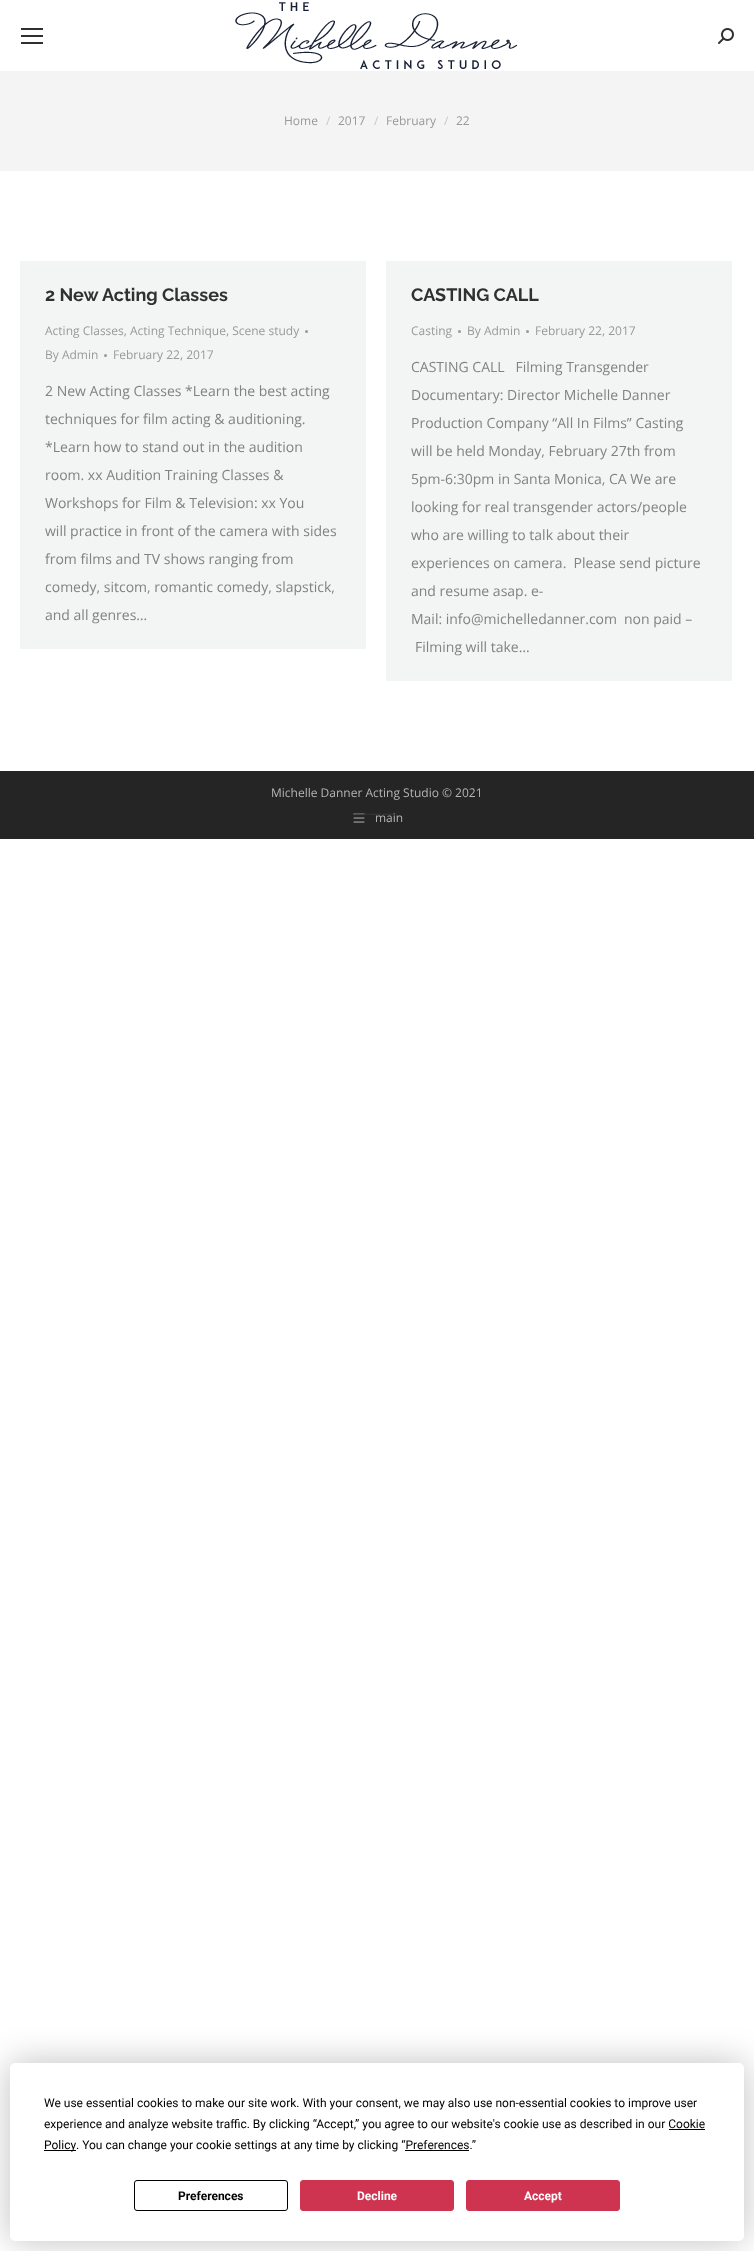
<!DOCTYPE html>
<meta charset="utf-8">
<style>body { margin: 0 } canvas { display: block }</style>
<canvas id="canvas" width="754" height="2251"></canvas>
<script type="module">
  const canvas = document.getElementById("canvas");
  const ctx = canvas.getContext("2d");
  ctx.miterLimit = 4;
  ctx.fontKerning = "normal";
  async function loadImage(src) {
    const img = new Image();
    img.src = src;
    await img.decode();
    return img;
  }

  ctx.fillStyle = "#ffffff";
  ctx.fillRect(0, 0, 754, 2251);
  ctx.fillStyle = "#303030";
  ctx.fillRect(21, 28, 22, 2);
  ctx.fillRect(21, 35, 22, 2);
  ctx.fillRect(21, 42, 22, 2);
  ctx.drawImage(await loadImage("img1.png"), 235, 2, 283, 68);
  ctx.drawImage(await loadImage("img2.png"), 718, 28, 16, 16);
  ctx.fillStyle = "#f4f4f4";
  ctx.fillRect(0, 71, 754, 100);
  ctx.font = "12px Open Sans";
  ctx.fillStyle = "#999999";
  ctx.fillText("Home", 284, 125);
  ctx.fillStyle = "#c7c7c7";
  ctx.fillText("/", 326, 125);
  ctx.fillStyle = "#999999";
  ctx.fillText("2017", 338, 125);
  ctx.fillStyle = "#c7c7c7";
  ctx.fillText("/", 374, 125);
  ctx.fillStyle = "#999999";
  ctx.fillText("February", 386, 125);
  ctx.fillStyle = "#c7c7c7";
  ctx.fillText("/", 444, 125);
  ctx.fillStyle = "#999999";
  ctx.fillText("22", 456, 125);
  ctx.fillStyle = "#f3f4f4";
  ctx.fillRect(20, 261, 346, 388);
  ctx.font = "bold 18px Raleway";
  ctx.fillStyle = "#303030";
  ctx.fillText("2 New Acting Classes", 45, 301);
  ctx.font = "12px Open Sans";
  ctx.fillStyle = "#999999";
  ctx.fillText("Acting Classes, Acting Technique, Scene study", 45, 335);
  ctx.beginPath();
  ctx.arc(306.5, 331.5, 1.5, 0, Math.PI * 2);
  ctx.fill();
  ctx.fillText("By Admin", 45, 359);
  ctx.beginPath();
  ctx.arc(105.5, 355.5, 1.5, 0, Math.PI * 2);
  ctx.fill();
  ctx.fillText("February 22, 2017", 113, 359);
  ctx.font = "14px Open Sans";
  ctx.fillStyle = "#828282";
  ctx.fillText("2 New Acting Classes *Learn the best acting", 45, 396);
  ctx.fillText("techniques for film acting & auditioning.", 45, 424);
  ctx.fillText("*Learn how to stand out in the audition", 45, 452);
  ctx.fillText("room. xx Audition Training Classes &", 45, 480);
  ctx.fillText("Workshops for Film & Television: xx You", 45, 508);
  ctx.fillText("will practice in front of the camera with sides", 45, 536);
  ctx.fillText("from films and TV shows ranging from", 45, 564);
  ctx.fillText("comedy, sitcom, romantic comedy, slapstick,", 45, 592);
  ctx.fillText("and all genres…", 45, 620);
  ctx.fillStyle = "#f3f4f4";
  ctx.fillRect(386, 261, 346, 420);
  ctx.font = "bold 18px Raleway";
  ctx.fillStyle = "#303030";
  ctx.fillText("CASTING CALL", 411, 301);
  ctx.font = "12px Open Sans";
  ctx.fillStyle = "#999999";
  ctx.fillText("Casting", 411, 335);
  ctx.beginPath();
  ctx.arc(459.5, 331.5, 1.5, 0, Math.PI * 2);
  ctx.fill();
  ctx.fillText("By Admin", 467, 335);
  ctx.beginPath();
  ctx.arc(527.5, 331.5, 1.5, 0, Math.PI * 2);
  ctx.fill();
  ctx.fillText("February 22, 2017", 535, 335);
  ctx.font = "14px Open Sans";
  ctx.fillStyle = "#828282";
  ctx.fillText("CASTING CALL   Filming Transgender", 411, 372);
  ctx.fillText("Documentary: Director Michelle Danner", 411, 400);
  ctx.fillText("Production Company “All In Films” Casting", 411, 428);
  ctx.fillText("will be held Monday, February 27th from", 411, 456);
  ctx.fillText("5pm-6:30pm in Santa Monica, CA We are", 411, 484);
  ctx.fillText("looking for real transgender actors/people", 411, 512);
  ctx.fillText("who are willing to talk about their", 411, 540);
  ctx.fillText("experiences on camera.  Please send picture", 411, 568);
  ctx.fillText("and resume asap. e-", 411, 596);
  ctx.fillText("Mail: info@michelledanner.com", 411, 624);
  ctx.fillText("non paid –", 624, 624);
  ctx.fillText("Filming will take…", 415, 652);
  ctx.fillStyle = "#252525";
  ctx.fillRect(0, 771, 754, 68);
  ctx.font = "12px Open Sans";
  ctx.fillStyle = "#b3b5b6";
  ctx.fillText("Michelle Danner Acting Studio © 2021", 271, 797);
  ctx.drawImage(await loadImage("img3.png"), 353, 813, 12, 10);
  ctx.fillText("main", 375, 822);
  ctx.font = "14px Open Sans";
  ctx.fillStyle = "#383939";
  ctx.fillText("———", 354, 818);
  ctx.fillStyle = "rgba(0, 0, 0, 0.25)";
  ctx.filter = "blur(17.5px)";
  ctx.beginPath();
  ctx.roundRect(10, 2063, 734, 178, 5);
  ctx.fill();
  ctx.filter = "none";
  ctx.fillStyle = "#ffffff";
  ctx.beginPath();
  ctx.roundRect(10, 2063, 734, 178, 5);
  ctx.fill();
  ctx.font = "12px Roboto";
  ctx.fillStyle = "#000000";
  ctx.fillText("We use essential cookies to make our site work. With your consent, we may also use non-essential cookies to improve user", 44, 2107);
  ctx.fillText("experience and analyze website traffic. By clicking “Accept,” you agree to our website's cookie use as described in our Cookie", 44, 2128);
  ctx.fillRect(44, 2150, 32, 1);
  ctx.fillText("Policy", 44, 2149);
  ctx.fillRect(669, 2129, 36, 1);
  ctx.fillText(". You can change your cookie settings at any time by clicking “Preferences.”", 76, 2149);
  ctx.fillRect(405, 2150, 64, 1);
  ctx.beginPath();
  ctx.roundRect(134.5, 2180.5, 153, 30, 2.5);
  ctx.strokeStyle = "#000000";
  ctx.stroke();
  ctx.font = "bold 12px Roboto";
  ctx.fillText("Preferences", 178, 2200);
  ctx.fillStyle = "#ce334f";
  ctx.beginPath();
  ctx.roundRect(300.5, 2180.5, 153, 30, 2.5);
  ctx.fill();
  ctx.strokeStyle = "#ce334f";
  ctx.stroke();
  ctx.fillStyle = "#ffffff";
  ctx.fillText("Decline", 357, 2200);
  ctx.fillStyle = "#ce334f";
  ctx.beginPath();
  ctx.roundRect(466.5, 2180.5, 153, 30, 2.5);
  ctx.fill();
  ctx.stroke();
  ctx.fillStyle = "#ffffff";
  ctx.fillText("Accept", 524, 2200);
</script>
